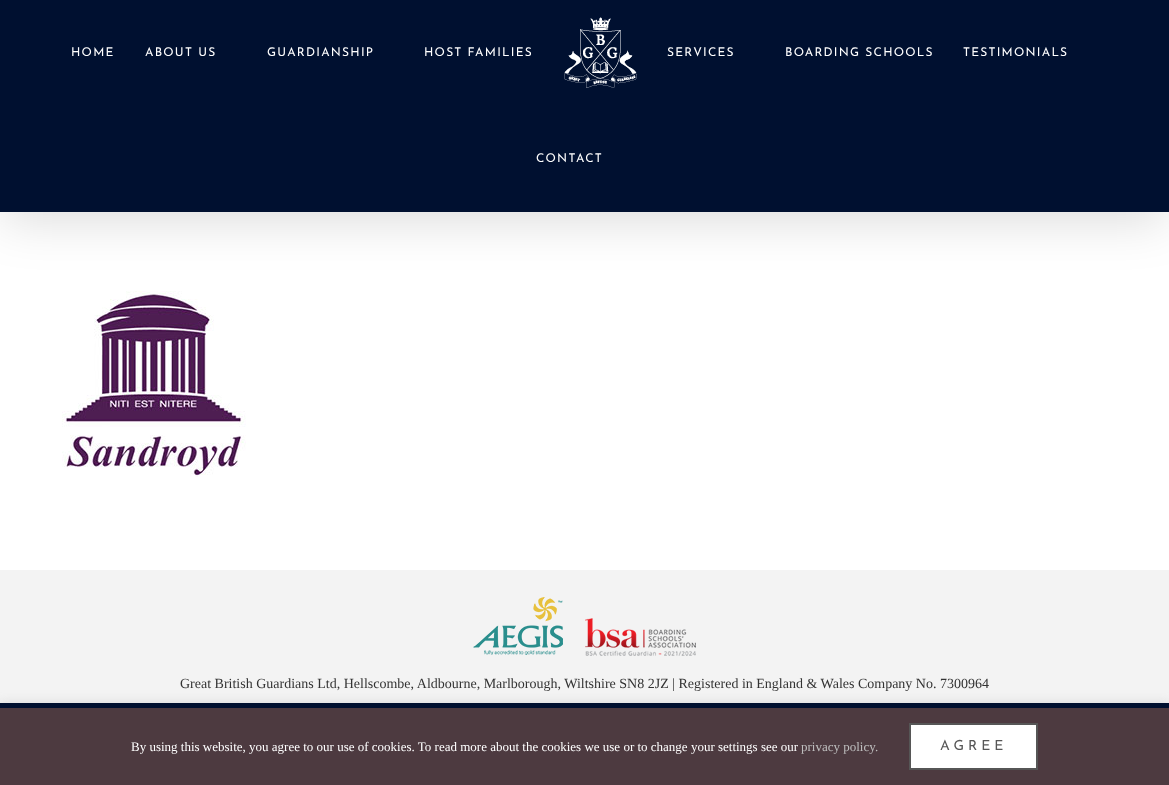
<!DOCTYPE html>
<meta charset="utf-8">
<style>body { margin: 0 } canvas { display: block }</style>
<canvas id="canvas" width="1169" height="785"></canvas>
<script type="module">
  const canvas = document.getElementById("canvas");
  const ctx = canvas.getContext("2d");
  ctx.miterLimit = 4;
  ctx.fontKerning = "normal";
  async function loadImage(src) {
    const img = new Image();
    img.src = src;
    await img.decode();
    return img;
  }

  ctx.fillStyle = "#ffffff";
  ctx.fillRect(0, 0, 1169, 785);
  ctx.drawImage(await loadImage("img2.png"), 62, 291, 184, 186);
  ctx.fillStyle = "rgba(0, 0, 0, 0.14)";
  ctx.filter = "blur(25px)";
  ctx.beginPath();
  ctx.rect(2, 12, 1165, 208);
  ctx.fill();
  ctx.filter = "none";
  ctx.fillStyle = "#001030";
  ctx.fillRect(0, 0, 1169, 212);
  ctx.letterSpacing = "1.25px";
  ctx.font = "100 12px Josefin Sans";
  ctx.fillStyle = "#ffffff";
  ctx.fillText("HOME", 71, 56);
  ctx.fillText("ABOUT US", 145, 56);
  ctx.fillText("GUARDIANSHIP", 267, 56);
  ctx.fillText("HOST FAMILIES", 424, 56);
  ctx.drawImage(await loadImage("img1.png"), 564, 17, 73, 71);
  ctx.fillText("SERVICES", 667, 56);
  ctx.fillText("BOARDING SCHOOLS", 785, 56);
  ctx.fillText("TESTIMONIALS", 963, 56);
  ctx.fillText("CONTACT", 536, 162);
  ctx.fillStyle = "#f3f3f3";
  ctx.fillRect(0, 570, 1169, 133);
  ctx.drawImage(await loadImage("img3.png"), 473, 597, 90, 58);
  ctx.drawImage(await loadImage("img4.png"), 585, 618, 111, 38);
  ctx.letterSpacing = "0px";
  ctx.font = "14px Liberation Serif";
  ctx.fillStyle = "#333333";
  ctx.fillText("Great British Guardians Ltd, Hellscombe, Aldbourne, Marlborough, Wiltshire SN8 2JZ | Registered in England & Wales Company No. 7300964", 180, 688);
  ctx.fillStyle = "rgba(172, 171, 171, 0.3)";
  ctx.filter = "blur(5px)";
  ctx.beginPath();
  ctx.rect(0, 702, 1169, 82);
  ctx.fill();
  ctx.filter = "none";
  ctx.fillStyle = "#001030";
  ctx.fillRect(0, 703, 1169, 5);
  ctx.fillStyle = "#4d3a40";
  ctx.fillRect(0, 708, 1169, 77);
  ctx.font = "13px Liberation Serif";
  ctx.fillStyle = "#ffffff";
  ctx.fillText("By using this website, you agree to our use of cookies. To read more about the cookies we use or to change your settings see our", 131, 751);
  ctx.fillStyle = "#bfbfbf";
  ctx.fillText("privacy policy.", 801, 751);
  ctx.fillStyle = "#ffffff";
  ctx.beginPath();
  ctx.rect(910, 724, 127, 45);
  ctx.fill();
  ctx.strokeStyle = "#565656";
  ctx.lineWidth = 2;
  ctx.stroke();
  ctx.letterSpacing = "4px";
  ctx.font = "100 14px Josefin Sans";
  ctx.fillStyle = "#565656";
  ctx.fillText("AGREE", 940, 750);
</script>
